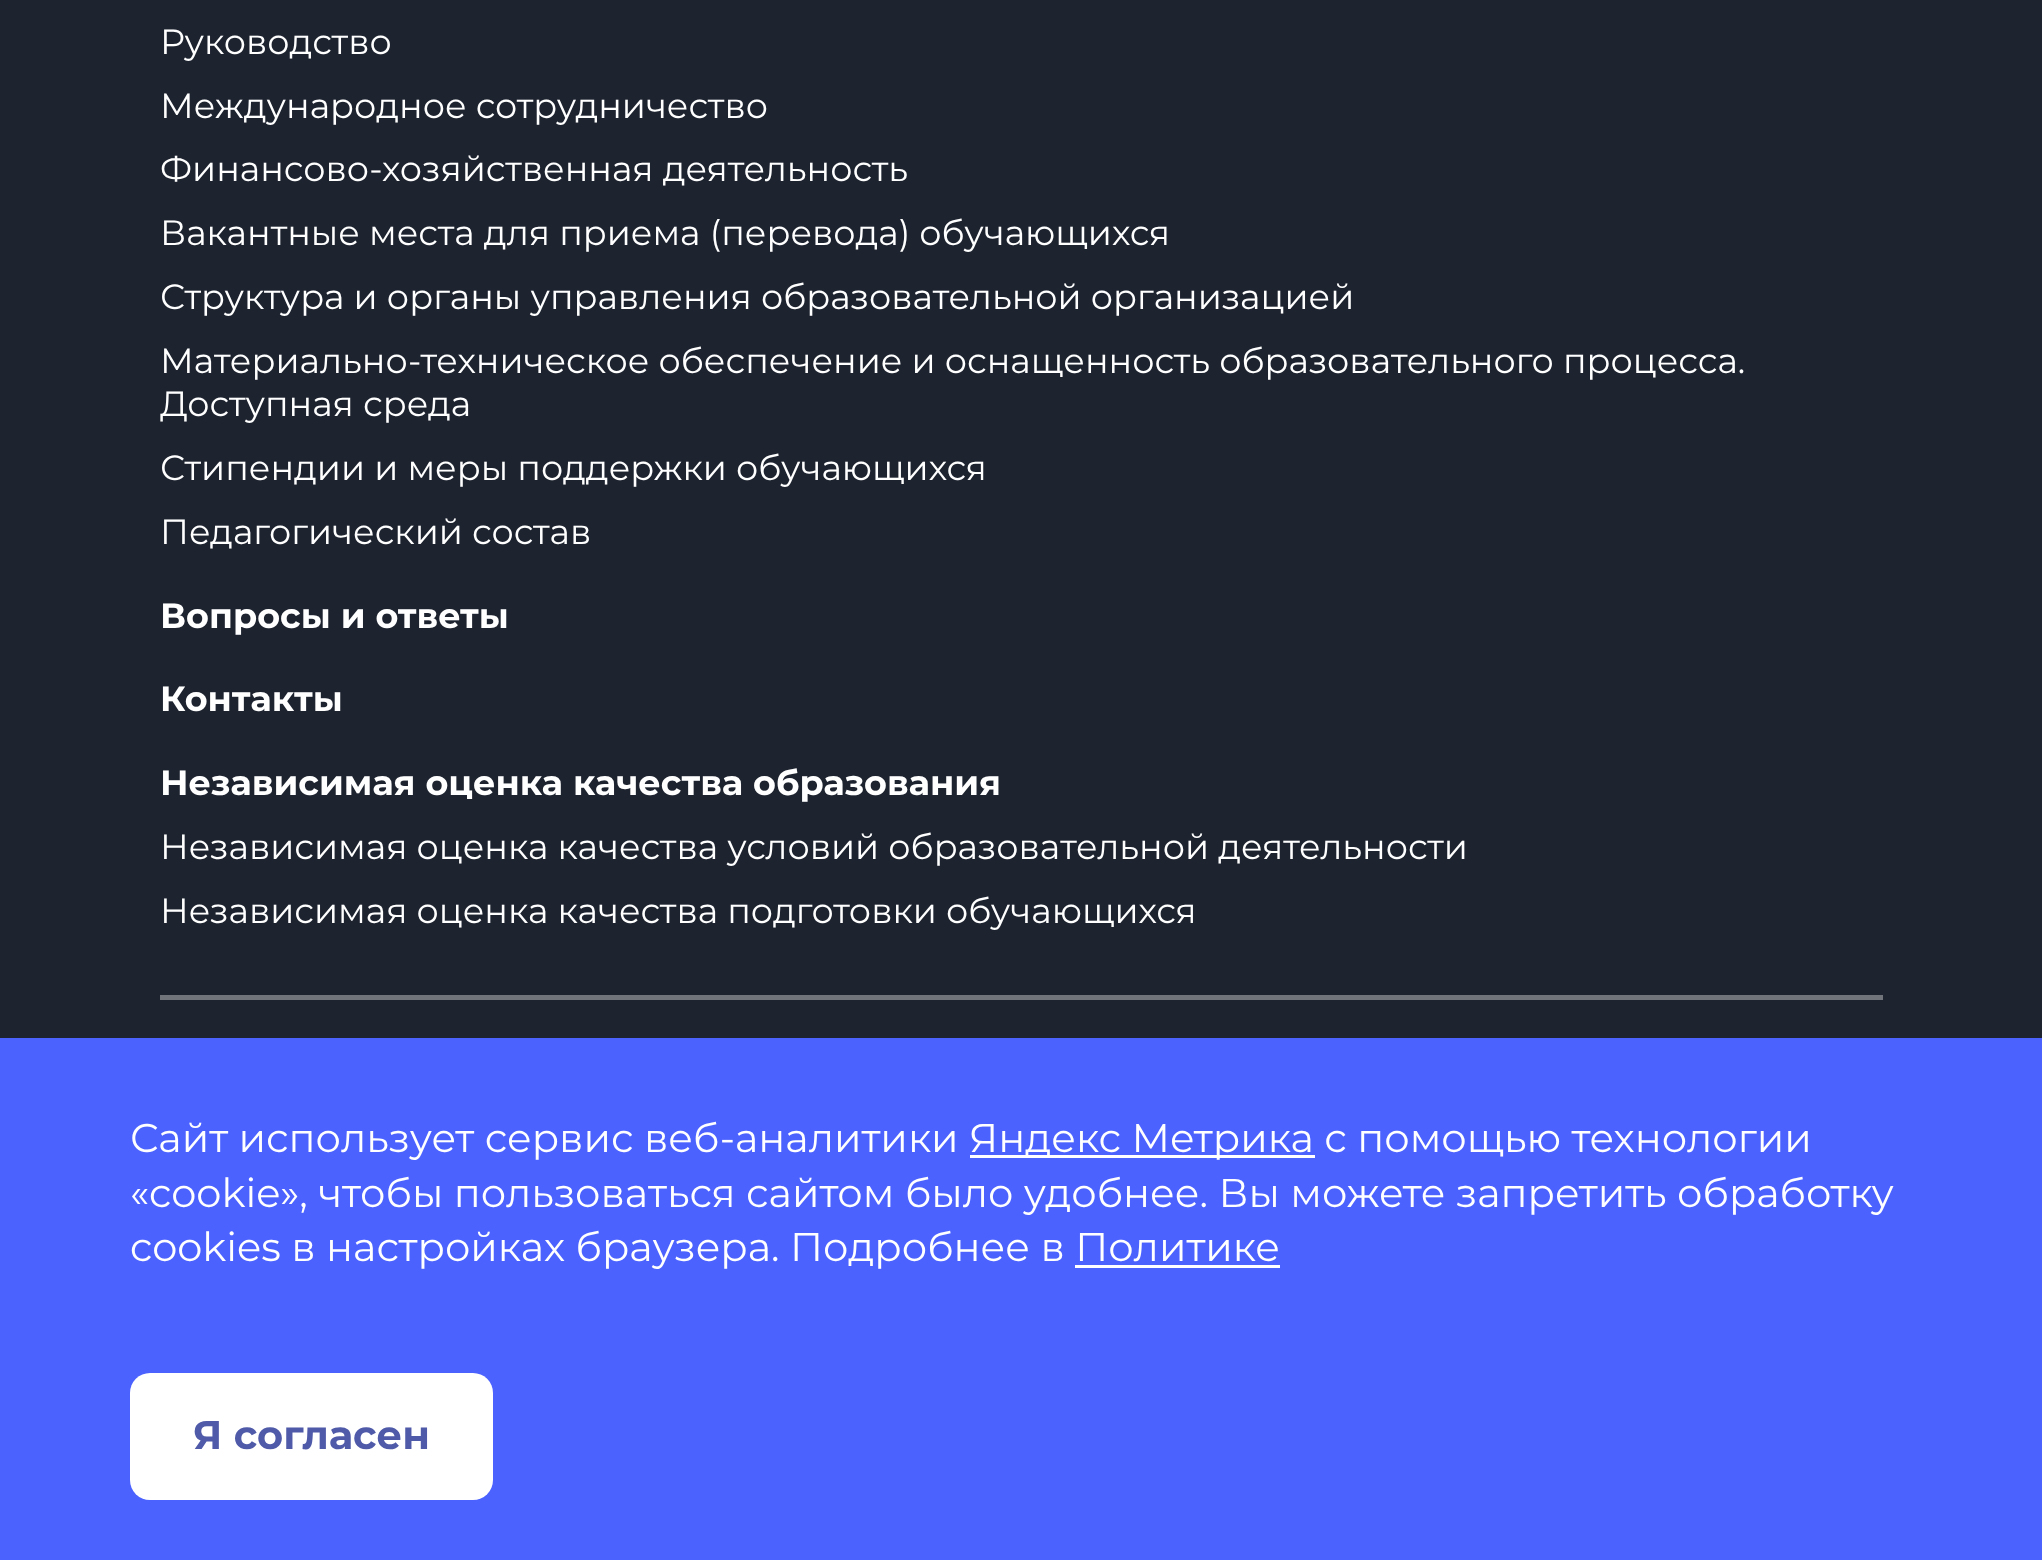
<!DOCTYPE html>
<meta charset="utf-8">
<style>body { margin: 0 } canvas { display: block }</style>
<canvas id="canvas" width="2042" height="1560"></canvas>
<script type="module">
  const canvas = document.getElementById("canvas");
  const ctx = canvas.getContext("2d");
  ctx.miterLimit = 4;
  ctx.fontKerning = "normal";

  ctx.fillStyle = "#1d232f";
  ctx.fillRect(0, 0, 2042, 1560);
  ctx.font = "35px Montserrat";
  ctx.fillStyle = "#ffffff";
  ctx.fillText("Руководство", 160, 54);
  ctx.fillText("Международное сотрудничество", 160, 118);
  ctx.fillText("Финансово-хозяйственная деятельность", 160, 181);
  ctx.fillText("Вакантные места для приема (перевода) обучающихся", 160, 245);
  ctx.fillText("Структура и органы управления образовательной организацией", 160, 309);
  ctx.fillText("Материально-техническое обеспечение и оснащенность образовательного процесса.", 160, 373);
  ctx.fillText("Доступная среда", 160, 416);
  ctx.fillText("Стипендии и меры поддержки обучающихся", 160, 480);
  ctx.fillText("Педагогический состав", 160, 544);
  ctx.font = "bold 35px Montserrat";
  ctx.fillText("Вопросы и ответы", 160, 628);
  ctx.fillText("Контакты", 160, 711);
  ctx.fillText("Независимая оценка качества образования", 160, 795);
  ctx.font = "35px Montserrat";
  ctx.fillText("Независимая оценка качества условий образовательной деятельности", 160, 859);
  ctx.fillText("Независимая оценка качества подготовки обучающихся", 160, 923);
  ctx.fillStyle = "#71747a";
  ctx.fillRect(160, 995, 1723, 5);
  ctx.fillStyle = "#4b62ff";
  ctx.fillRect(0, 1038, 2042, 522);
  ctx.font = "40px Montserrat";
  ctx.fillStyle = "#ffffff";
  ctx.fillText("Сайт использует сервис веб-аналитики", 130, 1152);
  ctx.fillRect(970, 1155, 345, 3);
  ctx.fillText("Яндекс Метрика с помощью технологии", 969, 1152);
  ctx.fillText("«cookie», чтобы пользоваться сайтом было удобнее. Вы можете запретить обработку", 130, 1207);
  ctx.fillText("cookies в настройках браузера. Подробнее в Политике", 130, 1261);
  ctx.fillRect(1075, 1265, 205, 3);
  ctx.beginPath();
  ctx.roundRect(130, 1373, 363, 127, 20);
  ctx.fill();
  ctx.font = "bold 40px Montserrat";
  ctx.fillStyle = "#4f5aa8";
  ctx.fillText("Я согласен", 193, 1449);
</script>
